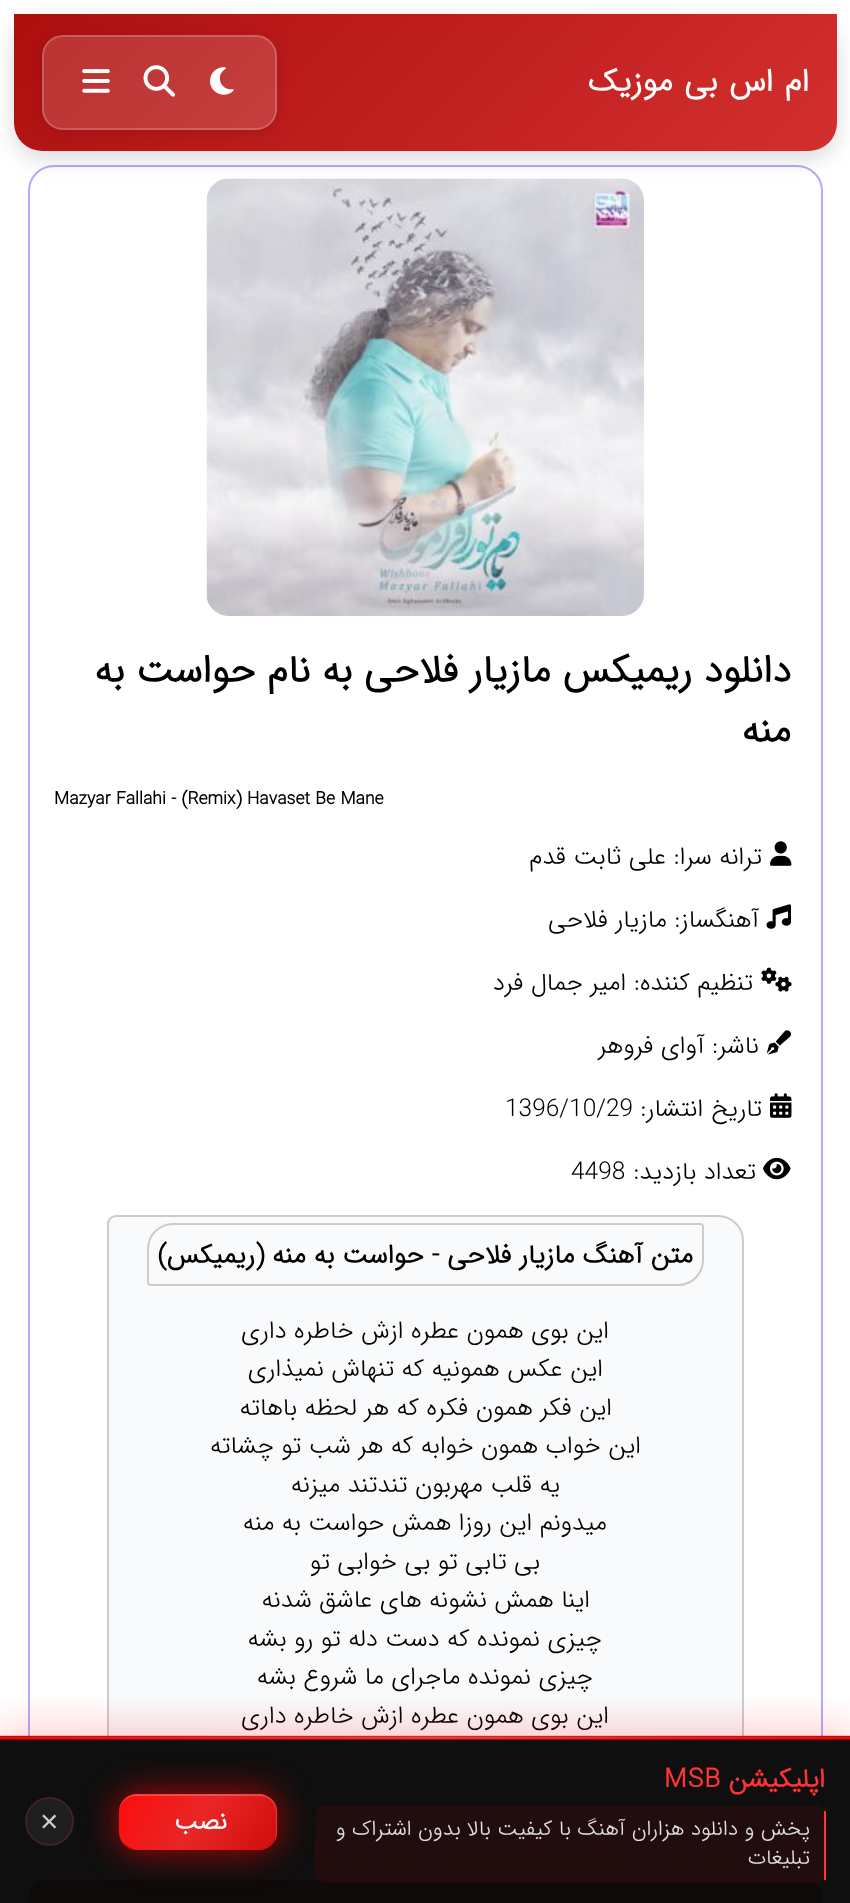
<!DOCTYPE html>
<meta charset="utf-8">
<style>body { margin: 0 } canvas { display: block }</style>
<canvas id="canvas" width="850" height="1903"></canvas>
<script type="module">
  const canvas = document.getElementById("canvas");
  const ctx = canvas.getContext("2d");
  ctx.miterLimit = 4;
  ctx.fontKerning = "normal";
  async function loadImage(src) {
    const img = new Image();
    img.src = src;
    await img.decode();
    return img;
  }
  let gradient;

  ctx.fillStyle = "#ffffff";
  ctx.fillRect(0, 0, 850, 1903);
  ctx.beginPath();
  ctx.roundRect(29, 166, 793, 1685, 25);
  ctx.strokeStyle = "#aeadff";
  ctx.lineWidth = 2;
  ctx.stroke();
  ctx.drawImage(await loadImage("img4.png"), 206, 178, 438, 438);
  ctx.fillStyle = "rgba(0, 0, 0, 0.15)";
  ctx.filter = "blur(10.5px)";
  ctx.beginPath();
  ctx.roundRect(14, 21, 823, 137, 28);
  ctx.fill();
  ctx.filter = "none";
  gradient = ctx.createLinearGradient(186, -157, 665, 322);
  gradient.addColorStop(0, "#ad0f0f");
  gradient.addColorStop(1, "#d32f2f");
  ctx.fillStyle = gradient;
  ctx.beginPath();
  ctx.roundRect(14, 14, 823, 137, [0, 0, 28, 28]);
  ctx.fill();
  ctx.letterSpacing = "-0.5px";
  ctx.wordSpacing = "2.5px";
  ctx.direction = "rtl";
  ctx.font = "bold 31.5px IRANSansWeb";
  ctx.fillStyle = "#ffffff";
  ctx.fillText("ام اس بی موزیک", 809, 91);
  ctx.save();
  ctx.beginPath();
  ctx.moveTo(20, 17);
  ctx.lineTo(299, 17);
  ctx.lineTo(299, 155);
  ctx.lineTo(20, 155);
  ctx.closePath();
  ctx.moveTo(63, 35);
  ctx.lineTo(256, 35);
  ctx.bezierCurveTo(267.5, 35, 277, 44.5, 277, 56);
  ctx.lineTo(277, 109);
  ctx.bezierCurveTo(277, 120.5, 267.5, 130, 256, 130);
  ctx.lineTo(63, 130);
  ctx.bezierCurveTo(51.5, 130, 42, 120.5, 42, 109);
  ctx.lineTo(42, 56);
  ctx.bezierCurveTo(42, 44.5, 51.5, 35, 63, 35);
  ctx.closePath();
  ctx.clip("evenodd");
  ctx.fillStyle = "rgba(0, 0, 0, 0.1)";
  ctx.filter = "blur(7px)";
  ctx.beginPath();
  ctx.roundRect(42, 39, 235, 94, 21);
  ctx.fill();
  ctx.filter = "none";
  ctx.restore();
  ctx.fillStyle = "rgba(255, 255, 255, 0.15)";
  ctx.beginPath();
  ctx.roundRect(42, 35, 235, 95, 21);
  ctx.fill();
  ctx.beginPath();
  ctx.roundRect(43, 36, 233, 93, 20);
  ctx.strokeStyle = "rgba(255, 255, 255, 0.2)";
  ctx.stroke();
  ctx.drawImage(await loadImage("img1.png"), 210, 67, 24, 28);
  ctx.drawImage(await loadImage("img2.png"), 143, 65, 32, 32);
  ctx.drawImage(await loadImage("img3.png"), 82, 69, 28, 24);
  ctx.letterSpacing = "0px";
  ctx.wordSpacing = "0px";
  ctx.font = "bold 38.5px IRANSansWeb";
  ctx.fillStyle = "#000000";
  ctx.fillText("دانلود ریمیکس مازیار فلاحی به نام حواست به", 791, 682);
  ctx.fillText("منه", 791, 742);
  ctx.direction = "ltr";
  ctx.font = "bold 17.5px IRANSansWeb";
  ctx.fillText("Mazyar Fallahi - (Remix) Havaset Be Mane", 54, 804);
  ctx.drawImage(await loadImage("img5.png"), 770, 841, 22, 25);
  ctx.direction = "rtl";
  ctx.font = "300 24.5px IRANSansWeb";
  ctx.fillText("ترانه سرا: علی ثابت قدم", 762, 864);
  ctx.drawImage(await loadImage("img6.png"), 766, 904, 25, 25);
  ctx.fillText("آهنگساز: مازیار فلاحی", 759, 927);
  ctx.drawImage(await loadImage("img7.png"), 761, 967, 31, 25);
  ctx.fillText("تنظیم کننده: امیر جمال‌ فرد", 753, 990);
  ctx.drawImage(await loadImage("img8.png"), 766, 1030, 25, 25);
  ctx.fillText("ناشر: آوای فروهر", 759, 1053);
  ctx.drawImage(await loadImage("img9.png"), 770, 1093, 22, 25);
  ctx.fillText("تاریخ انتشار:", 762, 1116);
  ctx.direction = "ltr";
  ctx.fillText("1396/10/29", 505, 1116);
  ctx.drawImage(await loadImage("img10.png"), 763, 1157, 28, 23);
  ctx.direction = "rtl";
  ctx.fillText("تعداد بازدید:", 756, 1179);
  ctx.direction = "ltr";
  ctx.fillText("4498", 571, 1179);
  ctx.fillStyle = "#f9fafc";
  ctx.beginPath();
  ctx.roundRect(108, 1216, 635, 621, [8, 25, 25, 8]);
  ctx.fill();
  ctx.strokeStyle = "#cccccc";
  ctx.stroke();
  ctx.beginPath();
  ctx.roundRect(148, 1224, 555, 61, [25, 3, 25, 3]);
  ctx.stroke();
  ctx.direction = "rtl";
  ctx.font = "bold 26.25px IRANSansWeb";
  ctx.fillStyle = "#000000";
  ctx.fillText("متن آهنگ مازیار فلاحی - حواست به منه (ریمیکس)", 693, 1263);
  ctx.font = "300 24.5px IRANSansWeb";
  ctx.fillText("این بوی همون عطره ازش خاطره داری", 609, 1338);
  ctx.fillText("این عکس همونیه که تنهاش نمیذاری", 603, 1376);
  ctx.fillText("این فکر همون فکره که هر لحظه باهاته", 612, 1415);
  ctx.fillText("این خواب همون خوابه که هر شب تو چشاته", 641, 1453);
  ctx.fillText("یه قلب مهربون تندتند میزنه", 560, 1492);
  ctx.fillText("میدونم این روزا همش حواست به منه", 607, 1530);
  ctx.fillText("بی تابی تو بی خوابی تو", 540, 1569);
  ctx.fillText("اینا همش نشونه های عاشق شدنه", 590, 1607);
  ctx.fillText("چیزی نمونده که دست دله تو رو بشه", 602, 1646);
  ctx.fillText("چیزی نمونده ماجرای ما شروع بشه", 593, 1684);
  ctx.fillText("این بوی همون عطره ازش خاطره داری", 609, 1723);
  ctx.fillStyle = "#b50303";
  ctx.beginPath();
  ctx.roundRect(28, 1880, 795, 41, 18);
  ctx.fill();
  ctx.save();
  ctx.beginPath();
  ctx.rect(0, 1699, 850, 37);
  ctx.clip();
  ctx.fillStyle = "rgba(255, 0, 0, 0.2)";
  ctx.filter = "blur(22px)";
  ctx.beginPath();
  ctx.rect(0, 1727, 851, 168);
  ctx.fill();
  ctx.filter = "none";
  ctx.restore();
  ctx.fillStyle = "rgba(10, 10, 10, 0.98)";
  ctx.fillRect(0, 1736, 850, 167);
  ctx.drawImage(await loadImage("img11.png"), 0, 1735, 850, 6);
  ctx.letterSpacing = "1px";
  ctx.font = "bold 26.25px IRANSansWeb";
  ctx.fillStyle = "#ff3333";
  ctx.fillText("اپلیکیشن", 825, 1787);
  ctx.direction = "ltr";
  ctx.fillText("MSB", 664, 1787);
  ctx.fillStyle = "rgba(255, 0, 0, 0.08)";
  ctx.beginPath();
  ctx.roundRect(315, 1806, 511, 77, 9);
  ctx.fill();
  ctx.fillStyle = "#ff3333";
  ctx.fillRect(824, 1811, 2, 69);
  ctx.letterSpacing = "0px";
  ctx.direction = "rtl";
  ctx.font = "300 21px IRANSansWeb";
  ctx.fillStyle = "#e0e0e0";
  ctx.fillText("پخش و دانلود هزاران آهنگ با کیفیت بالا بدون اشتراک و", 810, 1835);
  ctx.fillText("تبلیغات", 810, 1864);
  ctx.fillStyle = "#1e1e1e";
  ctx.beginPath();
  ctx.arc(49.5, 1821.5, 24.5, 0, Math.PI * 2);
  ctx.fill();
  ctx.beginPath();
  ctx.arc(49.5, 1821.5, 23.5, 0, Math.PI * 2);
  ctx.strokeStyle = "rgba(207, 44, 44, 0.2)";
  ctx.stroke();
  ctx.fillStyle = "rgba(255, 0, 0, 0.7)";
  ctx.filter = "blur(17.5px)";
  ctx.beginPath();
  ctx.roundRect(119, 1794, 158, 56, 18);
  ctx.fill();
  ctx.filter = "none";
  gradient = ctx.createLinearGradient(144, 1768, 251, 1875);
  gradient.addColorStop(0, "#ff0000");
  gradient.addColorStop(1, "#cc0000");
  ctx.fillStyle = gradient;
  ctx.beginPath();
  ctx.roundRect(119, 1794, 158, 56, 18);
  ctx.fill();
  ctx.fillStyle = "rgba(255, 255, 255, 0.2)";
  ctx.beginPath();
  ctx.moveTo(136, 1796);
  ctx.lineTo(259, 1796);
  ctx.bezierCurveTo(269, 1796, 276, 1803, 276, 1813);
  ctx.lineTo(276, 1834);
  ctx.lineTo(275, 1840);
  ctx.bezierCurveTo(276, 1838, 277, 1835, 277, 1832);
  ctx.lineTo(277, 1812);
  ctx.bezierCurveTo(277, 1802, 269, 1794, 259, 1794);
  ctx.lineTo(137, 1794);
  ctx.bezierCurveTo(127, 1794, 119, 1802, 119, 1812);
  ctx.lineTo(119, 1813);
  ctx.bezierCurveTo(119, 1803, 127, 1796, 136, 1796);
  ctx.closePath();
  ctx.fill();
  gradient = ctx.createLinearGradient(61, 1743, 334, 1900);
  gradient.addColorStop(0.1, "rgba(255, 255, 255, 0)");
  gradient.addColorStop(0.5, "rgba(255, 255, 255, 0.15)");
  gradient.addColorStop(0.9, "rgba(255, 255, 255, 0)");
  ctx.fillStyle = gradient;
  ctx.beginPath();
  ctx.moveTo(137, 1794);
  ctx.lineTo(262, 1794);
  ctx.lineTo(273, 1800);
  ctx.bezierCurveTo(278, 1804, 277, 1813, 277, 1819);
  ctx.lineTo(277, 1836);
  ctx.bezierCurveTo(273, 1854, 252, 1850, 239, 1850);
  ctx.lineTo(135, 1850);
  ctx.lineTo(123, 1843);
  ctx.bezierCurveTo(117, 1838, 118, 1810, 120, 1805);
  ctx.bezierCurveTo(123, 1798, 130, 1794, 137, 1794);
  ctx.closePath();
  ctx.fill();
  ctx.letterSpacing = "1px";
  ctx.font = "bold 24.5px IRANSansWeb";
  ctx.fillStyle = "#ffffff";
  ctx.fillText("نصب", 227, 1829);
  ctx.letterSpacing = "0px";
  ctx.direction = "ltr";
  ctx.font = "31.5px Liberation Sans";
  ctx.fillStyle = "#cfcfcf";
  ctx.fillText("×", 40, 1832);
</script>
